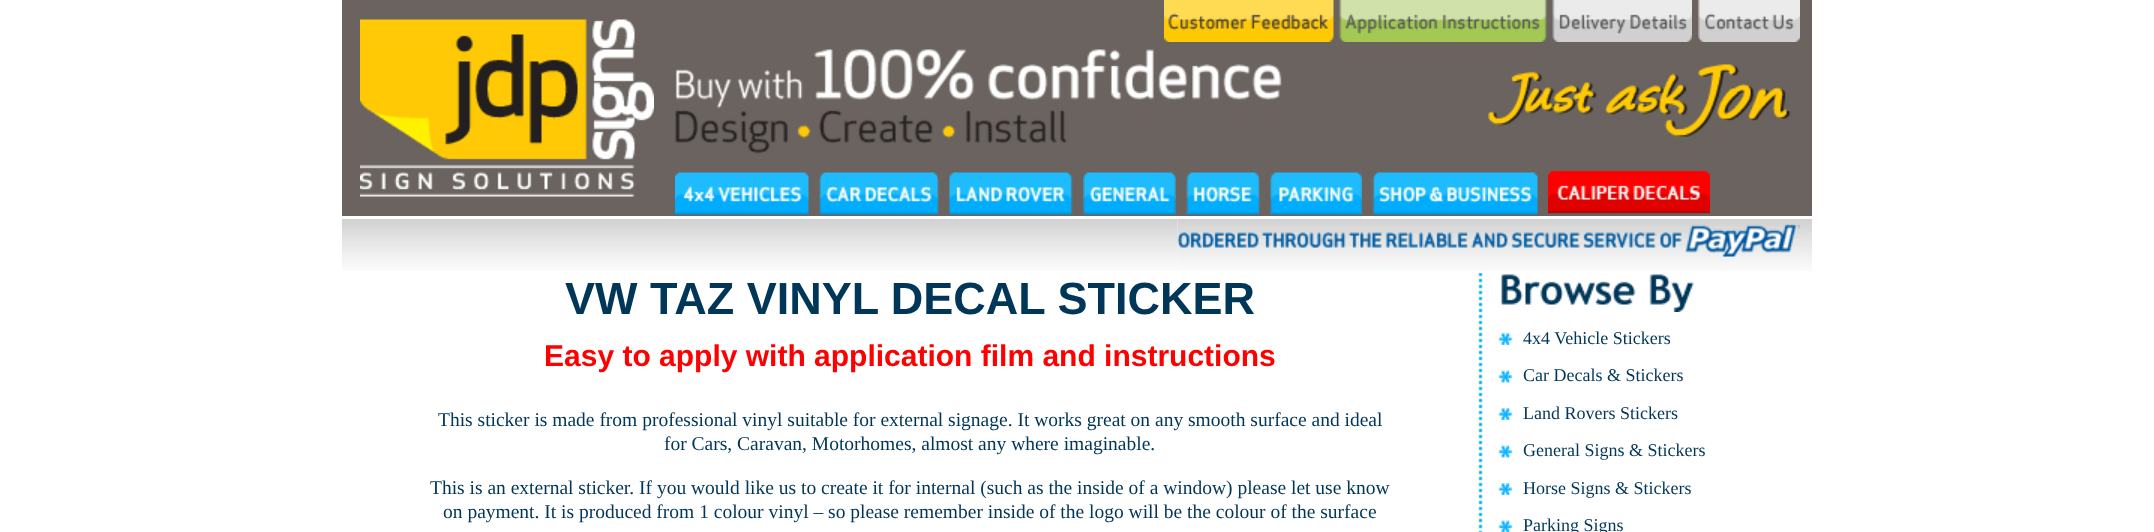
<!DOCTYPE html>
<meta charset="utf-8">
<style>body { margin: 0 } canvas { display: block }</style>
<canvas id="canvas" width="2154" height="532"></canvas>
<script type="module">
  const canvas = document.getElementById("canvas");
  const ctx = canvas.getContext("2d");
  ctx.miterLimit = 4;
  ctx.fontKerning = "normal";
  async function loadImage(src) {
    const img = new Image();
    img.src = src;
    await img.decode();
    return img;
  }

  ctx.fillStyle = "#ffffff";
  ctx.fillRect(0, 0, 2154, 532);
  ctx.fillStyle = "#6a635f";
  ctx.fillRect(342, 0, 1470, 216);
  ctx.drawImage(await loadImage("img1.png"), 360, 19, 294, 178);
  ctx.drawImage(await loadImage("img2.png"), 1164, 0, 170, 42);
  ctx.drawImage(await loadImage("img3.png"), 1339, 0, 208, 42);
  ctx.drawImage(await loadImage("img4.png"), 1552, 0, 140, 42);
  ctx.drawImage(await loadImage("img5.png"), 1698, 0, 102, 42);
  ctx.drawImage(await loadImage("img6.png"), 675, 49, 607, 105);
  ctx.drawImage(await loadImage("img7.png"), 1488, 64, 302, 73);
  ctx.drawImage(await loadImage("img8.png"), 675, 172, 134, 43);
  ctx.drawImage(await loadImage("img9.png"), 819, 172, 120, 43);
  ctx.drawImage(await loadImage("img10.png"), 949, 172, 124, 43);
  ctx.drawImage(await loadImage("img11.png"), 1083, 172, 93, 43);
  ctx.drawImage(await loadImage("img12.png"), 1186, 172, 74, 43);
  ctx.drawImage(await loadImage("img13.png"), 1270, 172, 92, 43);
  ctx.drawImage(await loadImage("img14.png"), 1372, 172, 166, 43);
  ctx.drawImage(await loadImage("img15.png"), 1548, 170, 162, 44);
  ctx.drawImage(await loadImage("img16.png"), 342, 219, 836, 52);
  ctx.drawImage(await loadImage("img17.png"), 1177, 219, 623, 52);
  ctx.drawImage(await loadImage("img18.png"), 1800, 219, 12, 52);
  ctx.font = "bold 45px Liberation Sans";
  ctx.fillStyle = "#003658";
  ctx.fillText("VW TAZ VINYL DECAL STICKER", 565, 314);
  ctx.font = "bold 30px Liberation Sans";
  ctx.fillStyle = "#ff0000";
  ctx.fillText("Easy to apply with application film and instructions", 544, 366);
  ctx.font = "19.5px Liberation Serif";
  ctx.fillStyle = "#003658";
  ctx.fillText("This sticker is made from professional vinyl suitable for external signage. It works great on any smooth surface and ideal", 438, 426);
  ctx.fillText("for Cars, Caravan, Motorhomes, almost any where imaginable.", 664, 450);
  ctx.fillText("This is an external sticker. If you would like us to create it for internal (such as the inside of a window) please let use know", 430, 494);
  ctx.fillText("on payment. It is produced from 1 colour vinyl – so please remember inside of the logo will be the colour of the surface", 443, 518);
  ctx.drawImage(await loadImage("img19.png"), 1478, 273, 5, 259);
  ctx.drawImage(await loadImage("img20.png"), 1501, 274, 193, 38);
  ctx.drawImage(await loadImage("img21.png"), 1498, 333, 15, 12);
  ctx.font = "18px Liberation Serif";
  ctx.fillText("4x4 Vehicle Stickers", 1523, 344);
  ctx.drawImage(await loadImage("img22.png"), 1498, 370, 15, 13);
  ctx.fillText("Car Decals & Stickers", 1523, 381);
  ctx.drawImage(await loadImage("img21.png"), 1498, 408, 15, 12);
  ctx.fillText("Land Rovers Stickers", 1523, 419);
  ctx.drawImage(await loadImage("img22.png"), 1498, 445, 15, 13);
  ctx.fillText("General Signs & Stickers", 1523, 456);
  ctx.drawImage(await loadImage("img21.png"), 1498, 483, 15, 12);
  ctx.fillText("Horse Signs & Stickers", 1523, 494);
  ctx.drawImage(await loadImage("img23.png"), 1498, 520, 15, 12);
  ctx.fillText("Parking Signs", 1523, 531);
</script>
